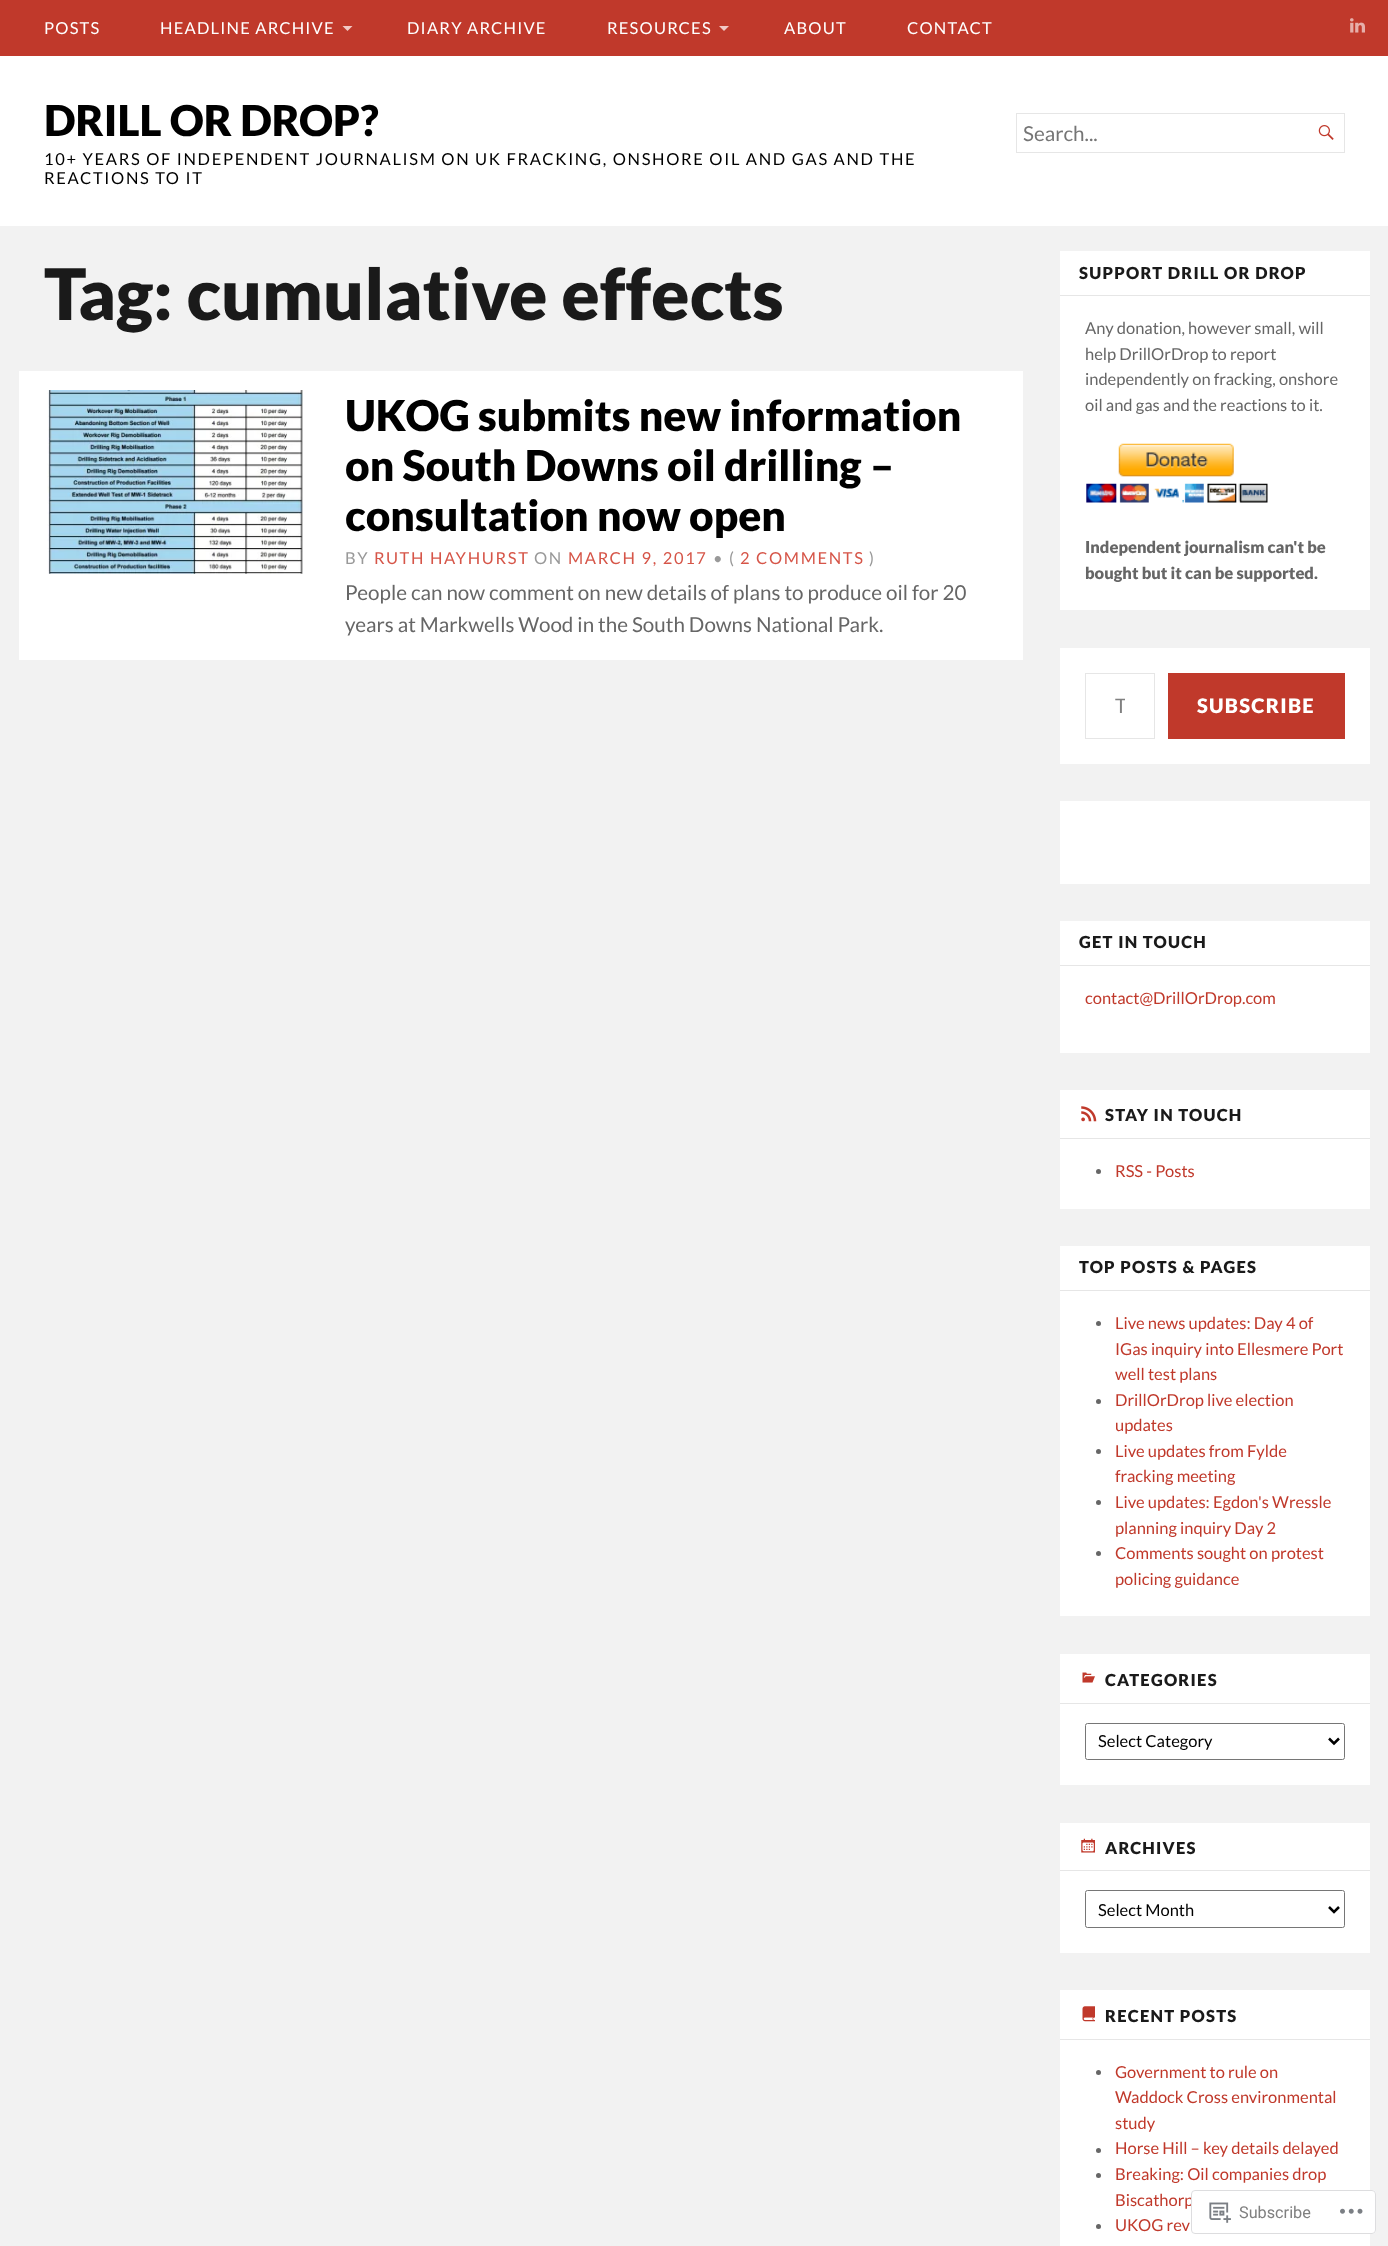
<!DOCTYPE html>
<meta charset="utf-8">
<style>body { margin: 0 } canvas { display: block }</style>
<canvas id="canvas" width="1388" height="2246"></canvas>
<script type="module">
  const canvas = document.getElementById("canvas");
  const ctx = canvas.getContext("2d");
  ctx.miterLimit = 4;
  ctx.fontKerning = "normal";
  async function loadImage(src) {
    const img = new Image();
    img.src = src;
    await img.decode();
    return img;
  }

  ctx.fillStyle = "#f2f2f2";
  ctx.fillRect(0, 0, 1388, 2246);
  ctx.fillStyle = "#c0392b";
  ctx.fillRect(0, 0, 1388, 56);
  ctx.letterSpacing = "1.2px";
  ctx.font = "16.5px Lato";
  ctx.fillStyle = "#ffffff";
  ctx.fillText("POSTS", 44, 34);
  ctx.fillText("HEADLINE ARCHIVE", 160, 34);
  ctx.fillStyle = "#f2c9c5";
  ctx.beginPath();
  ctx.moveTo(342.5, 26);
  ctx.lineTo(352.5, 26);
  ctx.lineTo(347.5, 31);
  ctx.closePath();
  ctx.fill();
  ctx.fillStyle = "#ffffff";
  ctx.fillText("DIARY ARCHIVE", 407, 34);
  ctx.fillText("RESOURCES", 607, 34);
  ctx.fillStyle = "#f2c9c5";
  ctx.beginPath();
  ctx.moveTo(719, 26);
  ctx.lineTo(729, 26);
  ctx.lineTo(724, 31);
  ctx.closePath();
  ctx.fill();
  ctx.fillStyle = "#ffffff";
  ctx.fillText("ABOUT", 784, 34);
  ctx.fillText("CONTACT", 907, 34);
  ctx.drawImage(await loadImage("img1.png"), 1350, 18, 15, 15);
  ctx.fillRect(0, 56, 1388, 170);
  ctx.letterSpacing = "0px";
  ctx.font = "900 42.5px Lato";
  ctx.fillStyle = "#000000";
  ctx.fillText("DRILL OR DROP?", 44, 136);
  ctx.letterSpacing = "1.65px";
  ctx.font = "16.5px Lato";
  ctx.fillText("10+ YEARS OF INDEPENDENT JOURNALISM ON UK FRACKING, ONSHORE OIL AND GAS AND THE", 44, 165);
  ctx.fillText("REACTIONS TO IT", 44, 184);
  ctx.strokeStyle = "#e6e6e6";
  ctx.strokeRect(1016.5, 113.5, 328, 39);
  ctx.letterSpacing = "0px";
  ctx.font = "20.6px Lato";
  ctx.fillStyle = "#757575";
  ctx.fillText("Search...", 1023, 141);
  ctx.drawImage(await loadImage("img2.png"), 1318, 125, 16, 15);
  ctx.font = "900 70.9px Lato";
  ctx.fillStyle = "#1a1a1a";
  ctx.fillText("Tag: cumulative effects", 44, 320);
  ctx.fillStyle = "#ffffff";
  ctx.fillRect(19, 371, 1004, 289);
  ctx.drawImage(await loadImage("img3.png"), 47, 390, 256, 184);
  ctx.font = "900 42.5px Lato";
  ctx.fillStyle = "#000000";
  ctx.fillText("UKOG submits new information", 345, 431);
  ctx.fillText("on South Downs oil drilling –", 345, 481);
  ctx.fillText("consultation now open", 345, 531);
  ctx.letterSpacing = "1.65px";
  ctx.font = "16.5px Lato";
  ctx.fillStyle = "#999999";
  ctx.fillText("BY", 345, 564);
  ctx.fillStyle = "#d65548";
  ctx.fillText("RUTH HAYHURST", 374, 564);
  ctx.fillStyle = "#999999";
  ctx.fillText("ON", 534, 564);
  ctx.fillStyle = "#d65548";
  ctx.fillText("MARCH 9, 2017", 568, 564);
  ctx.fillStyle = "#999999";
  ctx.fillText("• (", 713, 564);
  ctx.fillStyle = "#d65548";
  ctx.fillText("2 COMMENTS", 740, 564);
  ctx.fillStyle = "#999999";
  ctx.fillText(")", 869, 564);
  ctx.letterSpacing = "0px";
  ctx.font = "20.6px Lato";
  ctx.fillStyle = "#666666";
  ctx.fillText("People can now comment on new details of plans to produce oil for 20", 345, 600);
  ctx.fillText("years at Markwells Wood in the South Downs National Park.", 345, 632);
  ctx.fillStyle = "#ffffff";
  ctx.fillRect(1060, 251, 310, 359);
  ctx.fillStyle = "#e6e6e6";
  ctx.fillRect(1060, 295, 310, 1);
  ctx.letterSpacing = "1.25px";
  ctx.font = "900 16.5px Lato";
  ctx.fillStyle = "#1a1a1a";
  ctx.fillText("SUPPORT DRILL OR DROP", 1079, 279);
  ctx.letterSpacing = "0px";
  ctx.font = "16.5px Lato";
  ctx.fillStyle = "#666666";
  ctx.fillText("Any donation, however small, will", 1085, 334);
  ctx.fillText("help DrillOrDrop to report", 1085, 360);
  ctx.fillText("independently on fracking, onshore", 1085, 385);
  ctx.fillText("oil and gas and the reactions to it.", 1085, 411);
  ctx.drawImage(await loadImage("img4.png"), 1086, 443, 182, 60);
  ctx.font = "900 16.5px Lato";
  ctx.fillText("Independent journalism can't be", 1085, 553);
  ctx.fillText("bought but it can be supported.", 1085, 579);
  ctx.fillStyle = "#ffffff";
  ctx.fillRect(1060, 648, 310, 116);
  ctx.strokeRect(1085.5, 673.5, 69, 65);
  ctx.save();
  ctx.beginPath();
  ctx.rect(1115, 693, 10, 23);
  ctx.clip();
  ctx.font = "20px Lato";
  ctx.fillStyle = "#808080";
  ctx.fillText("T", 1115, 713);
  ctx.restore();
  ctx.fillStyle = "#c0392b";
  ctx.fillRect(1168, 673, 177, 66);
  ctx.letterSpacing = "1.25px";
  ctx.font = "900 20px Lato";
  ctx.fillStyle = "#ffffff";
  ctx.fillText("SUBSCRIBE", 1197, 713);
  ctx.fillRect(1060, 801, 310, 83);
  ctx.fillRect(1060, 921, 310, 132);
  ctx.fillStyle = "#e6e6e6";
  ctx.fillRect(1060, 965, 310, 1);
  ctx.font = "900 16.5px Lato";
  ctx.fillStyle = "#1a1a1a";
  ctx.fillText("GET IN TOUCH", 1079, 948);
  ctx.letterSpacing = "0px";
  ctx.font = "16.5px Lato";
  ctx.fillStyle = "#c0392b";
  ctx.fillText("contact@DrillOrDrop.com", 1085, 1004);
  ctx.fillStyle = "#ffffff";
  ctx.fillRect(1060, 1090, 310, 119);
  ctx.fillStyle = "#e6e6e6";
  ctx.fillRect(1060, 1138, 310, 1);
  ctx.drawImage(await loadImage("img5.png"), 1081, 1106, 16, 16);
  ctx.letterSpacing = "1.25px";
  ctx.font = "900 16.5px Lato";
  ctx.fillStyle = "#1a1a1a";
  ctx.fillText("STAY IN TOUCH", 1105, 1121);
  ctx.fillStyle = "#666666";
  ctx.beginPath();
  ctx.arc(1098.5, 1171.5, 2.5, 0, Math.PI * 2);
  ctx.fill();
  ctx.letterSpacing = "0px";
  ctx.font = "16.5px Lato";
  ctx.fillStyle = "#c0392b";
  ctx.fillText("RSS - Posts", 1115, 1177);
  ctx.fillStyle = "#ffffff";
  ctx.fillRect(1060, 1246, 310, 370);
  ctx.fillStyle = "#e6e6e6";
  ctx.fillRect(1060, 1290, 310, 1);
  ctx.letterSpacing = "1.25px";
  ctx.font = "900 16.5px Lato";
  ctx.fillStyle = "#1a1a1a";
  ctx.fillText("TOP POSTS & PAGES", 1079, 1273);
  ctx.fillStyle = "#666666";
  ctx.beginPath();
  ctx.arc(1098.5, 1323.5, 2.5, 0, Math.PI * 2);
  ctx.fill();
  ctx.letterSpacing = "0px";
  ctx.font = "16.5px Lato";
  ctx.fillStyle = "#c0392b";
  ctx.fillText("Live news updates: Day 4 of", 1115, 1329);
  ctx.fillText("IGas inquiry into Ellesmere Port", 1115, 1355);
  ctx.fillText("well test plans", 1115, 1380);
  ctx.fillStyle = "#666666";
  ctx.beginPath();
  ctx.arc(1098.5, 1401.5, 2.5, 0, Math.PI * 2);
  ctx.fill();
  ctx.fillStyle = "#c0392b";
  ctx.fillText("DrillOrDrop live election", 1115, 1406);
  ctx.fillText("updates", 1115, 1431);
  ctx.fillStyle = "#666666";
  ctx.beginPath();
  ctx.arc(1098.5, 1451.5, 2.5, 0, Math.PI * 2);
  ctx.fill();
  ctx.fillStyle = "#c0392b";
  ctx.fillText("Live updates from Fylde", 1115, 1457);
  ctx.fillText("fracking meeting", 1115, 1482);
  ctx.fillStyle = "#666666";
  ctx.beginPath();
  ctx.arc(1098.5, 1502.5, 2.5, 0, Math.PI * 2);
  ctx.fill();
  ctx.fillStyle = "#c0392b";
  ctx.fillText("Live updates: Egdon's Wressle", 1115, 1508);
  ctx.fillText("planning inquiry Day 2", 1115, 1534);
  ctx.fillStyle = "#666666";
  ctx.beginPath();
  ctx.arc(1098.5, 1553.5, 2.5, 0, Math.PI * 2);
  ctx.fill();
  ctx.fillStyle = "#c0392b";
  ctx.fillText("Comments sought on protest", 1115, 1559);
  ctx.fillText("policing guidance", 1115, 1585);
  ctx.fillStyle = "#ffffff";
  ctx.fillRect(1060, 1654, 310, 131);
  ctx.fillStyle = "#e6e6e6";
  ctx.fillRect(1060, 1703, 310, 1);
  ctx.drawImage(await loadImage("img6.png"), 1082, 1672, 13, 11);
  ctx.letterSpacing = "1.25px";
  ctx.font = "900 16.5px Lato";
  ctx.fillStyle = "#1a1a1a";
  ctx.fillText("CATEGORIES", 1105, 1686);
  ctx.beginPath();
  ctx.roundRect(1085.5, 1723.5, 259, 36, 2);
  ctx.strokeStyle = "#767676";
  ctx.stroke();
  ctx.beginPath();
  ctx.moveTo(1329, 1738.5);
  ctx.lineTo(1334, 1743.5);
  ctx.lineTo(1339, 1738.5);
  ctx.strokeStyle = "#000000";
  ctx.lineWidth = 2.5;
  ctx.stroke();
  ctx.letterSpacing = "0px";
  ctx.font = "16.5px Lato";
  ctx.fillStyle = "#000000";
  ctx.fillText("Select Category", 1098, 1747);
  ctx.fillStyle = "#ffffff";
  ctx.fillRect(1060, 1823, 310, 130);
  ctx.fillStyle = "#e6e6e6";
  ctx.fillRect(1060, 1870, 310, 1);
  ctx.drawImage(await loadImage("img7.png"), 1081, 1838, 14, 15);
  ctx.letterSpacing = "1.25px";
  ctx.font = "900 16.5px Lato";
  ctx.fillStyle = "#1a1a1a";
  ctx.fillText("ARCHIVES", 1105, 1854);
  ctx.beginPath();
  ctx.roundRect(1085.5, 1890.5, 259, 37, 2);
  ctx.strokeStyle = "#767676";
  ctx.lineWidth = 1;
  ctx.stroke();
  ctx.beginPath();
  ctx.moveTo(1329, 1907);
  ctx.lineTo(1334, 1912);
  ctx.lineTo(1339, 1907);
  ctx.strokeStyle = "#000000";
  ctx.lineWidth = 2.5;
  ctx.stroke();
  ctx.letterSpacing = "0px";
  ctx.font = "16.5px Lato";
  ctx.fillStyle = "#000000";
  ctx.fillText("Select Month", 1098, 1916);
  ctx.fillStyle = "#ffffff";
  ctx.fillRect(1060, 1990, 310, 256);
  ctx.fillStyle = "#e6e6e6";
  ctx.fillRect(1060, 2039, 310, 1);
  ctx.drawImage(await loadImage("img8.png"), 1082, 2006, 13, 16);
  ctx.letterSpacing = "1.25px";
  ctx.font = "900 16.5px Lato";
  ctx.fillStyle = "#1a1a1a";
  ctx.fillText("RECENT POSTS", 1105, 2022);
  ctx.fillStyle = "#666666";
  ctx.beginPath();
  ctx.arc(1098.5, 2072.5, 2.5, 0, Math.PI * 2);
  ctx.fill();
  ctx.letterSpacing = "0px";
  ctx.font = "16.5px Lato";
  ctx.fillStyle = "#c0392b";
  ctx.fillText("Government to rule on", 1115, 2078);
  ctx.fillText("Waddock Cross environmental", 1115, 2103);
  ctx.fillText("study", 1115, 2129);
  ctx.fillStyle = "#666666";
  ctx.beginPath();
  ctx.arc(1098.5, 2150.5, 2.5, 0, Math.PI * 2);
  ctx.fill();
  ctx.fillStyle = "#c0392b";
  ctx.fillText("Horse Hill – key details delayed", 1115, 2154);
  ctx.fillStyle = "#666666";
  ctx.beginPath();
  ctx.arc(1098.5, 2175.5, 2.5, 0, Math.PI * 2);
  ctx.fill();
  ctx.fillStyle = "#c0392b";
  ctx.fillText("Breaking: Oil companies drop", 1115, 2180);
  ctx.fillText("Biscathorp", 1115, 2206);
  ctx.fillStyle = "#666666";
  ctx.beginPath();
  ctx.arc(1098.5, 2226.5, 2.5, 0, Math.PI * 2);
  ctx.fill();
  ctx.fillStyle = "#c0392b";
  ctx.fillText("UKOG rev", 1115, 2231);
  ctx.fillStyle = "rgba(255, 255, 255, 0.98)";
  ctx.beginPath();
  ctx.roundRect(1191, 2190, 185, 44, 4);
  ctx.fill();
  ctx.beginPath();
  ctx.roundRect(1191.5, 2190.5, 184, 43, 3.5);
  ctx.strokeStyle = "rgba(220, 220, 222, 0.98)";
  ctx.lineWidth = 1;
  ctx.stroke();
  ctx.drawImage(await loadImage("img9.png"), 1209, 2202, 22, 21);
  ctx.font = "16.25px Roboto";
  ctx.fillStyle = "#808080";
  ctx.fillText("Subscribe", 1239, 2218);
  ctx.drawImage(await loadImage("img10.png"), 1340, 2208, 23, 6);
</script>
